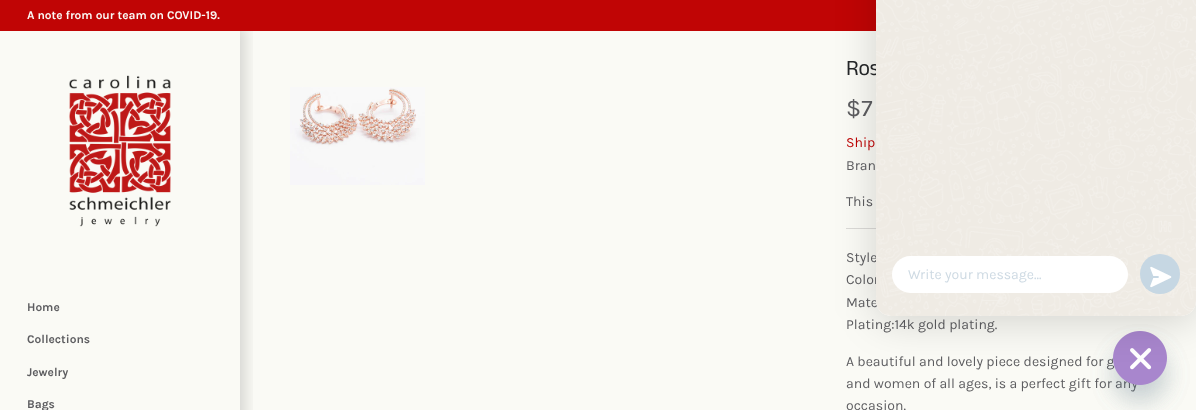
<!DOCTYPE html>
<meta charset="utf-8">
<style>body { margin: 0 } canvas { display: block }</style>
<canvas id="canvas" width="1196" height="410"></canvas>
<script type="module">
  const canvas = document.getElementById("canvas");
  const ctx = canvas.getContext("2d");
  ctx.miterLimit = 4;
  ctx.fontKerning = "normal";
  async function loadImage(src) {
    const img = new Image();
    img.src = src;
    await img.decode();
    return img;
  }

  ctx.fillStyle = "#fafaf5";
  ctx.fillRect(0, 0, 1196, 410);
  ctx.save();
  ctx.beginPath();
  ctx.rect(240, 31, 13, 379);
  ctx.clip();
  ctx.fillStyle = "rgba(0, 0, 0, 0.15)";
  ctx.filter = "blur(7.5px)";
  ctx.beginPath();
  ctx.rect(-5, 26, 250, 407);
  ctx.fill();
  ctx.filter = "none";
  ctx.restore();
  ctx.fillStyle = "#c00505";
  ctx.fillRect(0, 0, 876, 31);
  ctx.font = "bold 11.9px Karla";
  ctx.fillStyle = "#faf9f5";
  ctx.fillText("A note from our team on COVID-19.", 27, 19);
  ctx.drawImage(await loadImage("img1.png"), 69, 75, 102, 152);
  ctx.fillStyle = "#5d5d60";
  ctx.fillText("Home", 27, 311);
  ctx.fillText("Collections", 27, 343);
  ctx.fillText("Jewelry", 27, 376);
  ctx.fillText("Bags", 27, 408);
  ctx.drawImage(await loadImage("img2.png"), 290, 87, 135, 98);
  ctx.font = "22px Anek Tamil";
  ctx.fillStyle = "#252729";
  ctx.fillText("Ros", 846, 75);
  ctx.font = "24px Karla";
  ctx.fillStyle = "#5d5d60";
  ctx.fillText("$7", 846, 116);
  ctx.font = "14px Karla";
  ctx.fillStyle = "#c00505";
  ctx.fillText("Ship", 846, 147);
  ctx.fillStyle = "#5d5d60";
  ctx.fillText("Bran", 846, 170);
  ctx.fillText("This", 846, 206);
  ctx.fillStyle = "#dbdad7";
  ctx.fillRect(846, 228, 30, 1);
  ctx.fillStyle = "#5d5d60";
  ctx.fillText("Style", 846, 262);
  ctx.fillText("Color", 846, 284);
  ctx.fillText("Mate", 846, 307);
  ctx.fillText("Plating:14k gold plating.", 846, 329);
  ctx.fillText("A beautiful and lovely piece designed for g", 846, 366);
  ctx.fillText("and women of all ages, is a perfect gift for any", 846, 388);
  ctx.fillText("occasion.", 846, 410);
  ctx.fillStyle = "rgba(73, 104, 126, 0.16)";
  ctx.filter = "blur(12px)";
  ctx.beginPath();
  ctx.roundRect(1113, 347, 54, 54, 27);
  ctx.fill();
  ctx.filter = "none";
  ctx.drawImage(await loadImage("img5.png"), 1113, 331, 54, 54);
  ctx.fillStyle = "rgba(0, 0, 0, 0.16)";
  ctx.filter = "blur(20px)";
  ctx.beginPath();
  ctx.roundRect(876, -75, 320, 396, 15);
  ctx.fill();
  ctx.filter = "none";
  ctx.save();
  ctx.beginPath();
  ctx.moveTo(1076, 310);
  ctx.lineTo(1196, 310);
  ctx.lineTo(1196, 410);
  ctx.lineTo(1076, 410);
  ctx.closePath();
  ctx.moveTo(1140, 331);
  ctx.bezierCurveTo(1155, 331, 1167, 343, 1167, 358);
  ctx.bezierCurveTo(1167, 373, 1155, 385, 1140, 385);
  ctx.bezierCurveTo(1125, 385, 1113, 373, 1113, 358);
  ctx.bezierCurveTo(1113, 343, 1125, 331, 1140, 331);
  ctx.closePath();
  ctx.clip("evenodd");
  ctx.fillStyle = "rgba(73, 104, 126, 0.16)";
  ctx.filter = "blur(12px)";
  ctx.beginPath();
  ctx.roundRect(1113, 347, 54, 54, 27);
  ctx.fill();
  ctx.filter = "none";
  ctx.restore();
  ctx.fillStyle = "#ffffff";
  ctx.beginPath();
  ctx.roundRect(876, -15, 320, 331, 15);
  ctx.fill();
  ctx.drawImage(await loadImage("img3.png"), 876, 0, 320, 316);
  ctx.beginPath();
  ctx.roundRect(892, 256, 236, 37, 18.5);
  ctx.fill();
  ctx.fillStyle = "#cedae3";
  ctx.fillText("Write your message...", 908, 279);
  ctx.fillStyle = "#c6d7e3";
  ctx.beginPath();
  ctx.arc(1160, 274, 20, 0, Math.PI * 2);
  ctx.fill();
  ctx.drawImage(await loadImage("img4.png"), 1150, 266, 22, 22);
</script>
